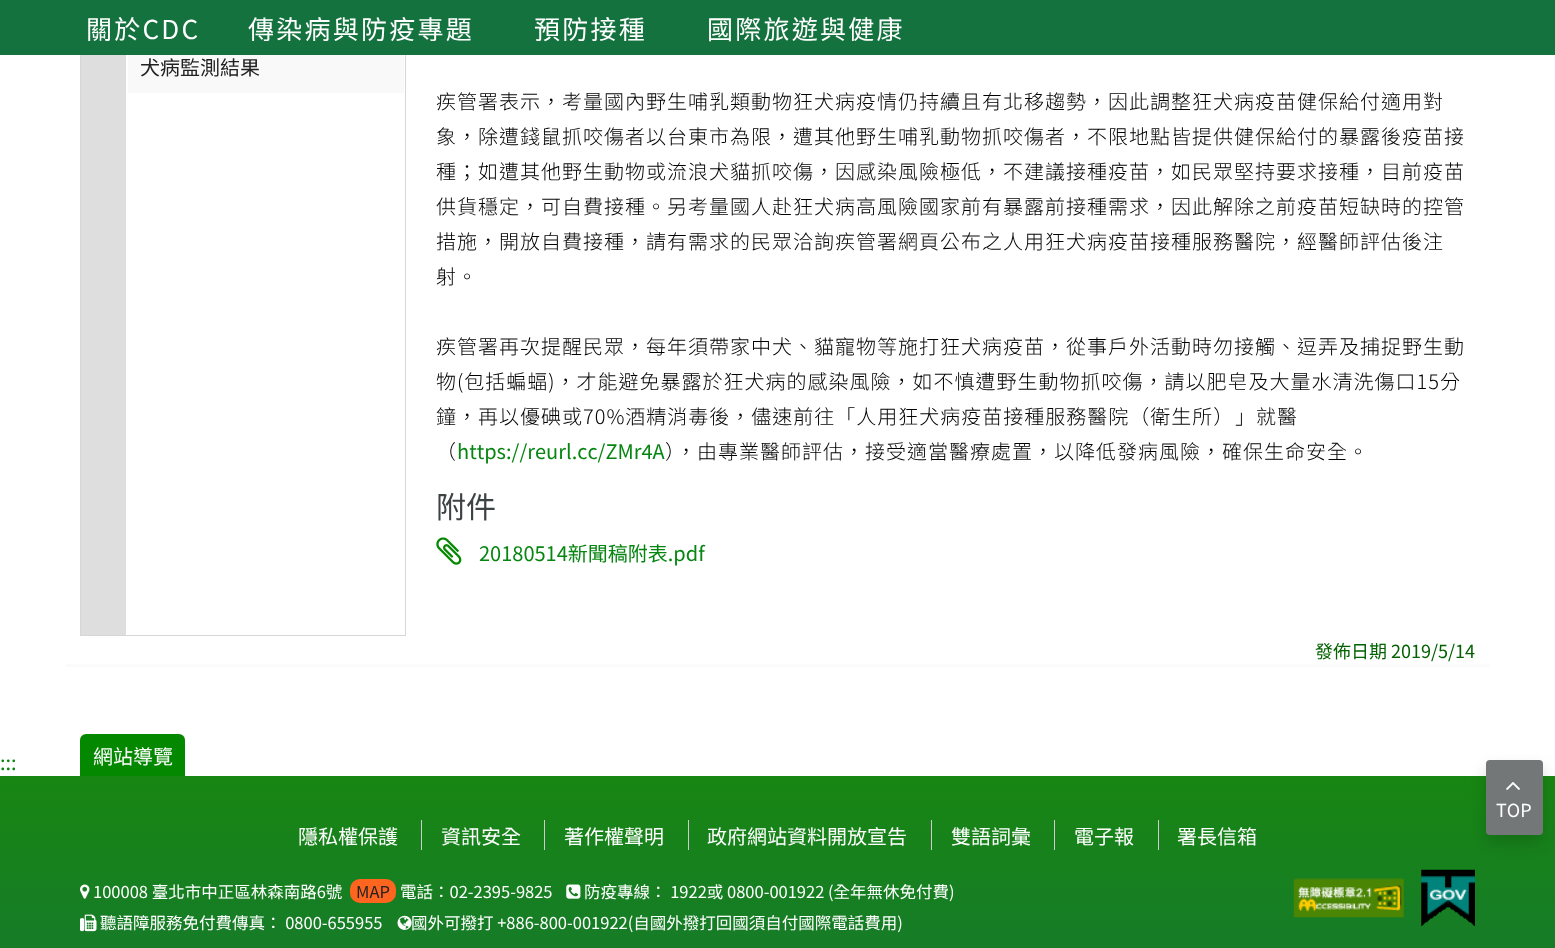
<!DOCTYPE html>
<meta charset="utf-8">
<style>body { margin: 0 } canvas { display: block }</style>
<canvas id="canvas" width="1555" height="948"></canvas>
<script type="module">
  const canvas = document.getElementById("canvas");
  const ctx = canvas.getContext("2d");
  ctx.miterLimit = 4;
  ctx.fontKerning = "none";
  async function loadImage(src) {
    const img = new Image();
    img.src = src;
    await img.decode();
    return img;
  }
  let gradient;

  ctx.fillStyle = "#ffffff";
  ctx.fillRect(0, 0, 1555, 948);
  ctx.fillStyle = "#d7d6d5";
  ctx.beginPath();
  ctx.moveTo(406, -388);
  ctx.lineTo(406, 636);
  ctx.lineTo(405, 635);
  ctx.lineTo(405, -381);
  ctx.closePath();
  ctx.fill();
  ctx.fillRect(80, 635, 326, 1);
  ctx.beginPath();
  ctx.moveTo(80, 636);
  ctx.lineTo(80, -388);
  ctx.lineTo(81, -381);
  ctx.lineTo(81, 635);
  ctx.closePath();
  ctx.fill();
  ctx.fillStyle = "#14723e";
  ctx.fillRect(0, 0, 1555, 55);
  ctx.letterSpacing = "2.25px";
  ctx.font = "26px Noto Sans TC";
  ctx.fillStyle = "#ffffff";
  ctx.fillText("關於CDC", 86, 39);
  ctx.fillText("傳染病與防疫專題", 248, 39);
  ctx.fillText("預防接種", 534, 39);
  ctx.fillText("國際旅遊與健康", 707, 39);
  ctx.fillStyle = "#dedede";
  ctx.fillRect(81, 55, 45, 580);
  ctx.fillStyle = "#f9f9f9";
  ctx.fillRect(128, 55, 276, 38);
  ctx.letterSpacing = "0px";
  ctx.font = "20px Noto Sans TC";
  ctx.fillStyle = "#222222";
  ctx.fillText("犬病監測結果", 140, 75);
  ctx.letterSpacing = "1px";
  ctx.font = "300 20px Noto Sans TC";
  ctx.fillStyle = "#000000";
  ctx.fillText("疾管署表示，考量國內野生哺乳類動物狂犬病疫情仍持續且有北移趨勢，因此調整狂犬病疫苗健保給付適用對", 436, 109);
  ctx.fillText("象，除遭錢鼠抓咬傷者以台東市為限，遭其他野生哺乳動物抓咬傷者，不限地點皆提供健保給付的暴露後疫苗接", 436, 144);
  ctx.fillText("種；如遭其他野生動物或流浪犬貓抓咬傷，因感染風險極低，不建議接種疫苗，如民眾堅持要求接種，目前疫苗", 436, 179);
  ctx.fillText("供貨穩定，可自費接種。另考量國人赴狂犬病高風險國家前有暴露前接種需求，因此解除之前疫苗短缺時的控管", 436, 214);
  ctx.fillText("措施，開放自費接種，請有需求的民眾洽詢疾管署網頁公布之人用狂犬病疫苗接種服務醫院，經醫師評估後注", 436, 249);
  ctx.fillText("射。", 436, 284);
  ctx.fillText("疾管署再次提醒民眾，每年須帶家中犬、貓寵物等施打狂犬病疫苗，從事戶外活動時勿接觸、逗弄及捕捉野生動", 436, 354);
  ctx.fillText("物(包括蝙蝠)，才能避免暴露於狂犬病的感染風險，如不慎遭野生動物抓咬傷，請以肥皂及大量水清洗傷口15分", 436, 389);
  ctx.fillText("鐘，再以優碘或70%酒精消毒後，儘速前往「人用狂犬病疫苗接種服務醫院（衛生所）", 436, 424);
  ctx.fillText("」就醫", 1235, 424);
  ctx.fillText("（", 436, 459);
  ctx.letterSpacing = "0px";
  ctx.font = "20px Noto Sans TC";
  ctx.fillStyle = "#068511";
  ctx.fillText("https://reurl.cc/ZMr4A", 457, 459);
  ctx.letterSpacing = "1px";
  ctx.font = "300 20px Noto Sans TC";
  ctx.fillStyle = "#000000";
  ctx.fillText("），由專業醫師評估，接受適當醫療處置，以降低發病風險，確保生命安全。", 665, 459);
  ctx.letterSpacing = "0px";
  ctx.font = "30px Noto Sans TC";
  ctx.fillStyle = "#3d4245";
  ctx.fillText("附件", 436, 518);
  ctx.drawImage(await loadImage("img1.png"), 436, 537, 26, 28);
  ctx.font = "20px Noto Sans TC";
  ctx.fillStyle = "#068511";
  ctx.fillText("20180514新聞稿附表.pdf", 479, 561);
  ctx.font = "18px Noto Sans TC";
  ctx.fillStyle = "#036100";
  ctx.fillText("發佈日期 2019/5/14", 1315, 658);
  ctx.fillStyle = "#fbfbfb";
  ctx.fillRect(65, 664, 1425, 3);
  ctx.font = "20px Noto Sans TC";
  ctx.fillStyle = "#068511";
  ctx.fillText(":::", 0, 770);
  ctx.fillStyle = "#048800";
  ctx.beginPath();
  ctx.roundRect(80, 734, 105, 42, [6, 6, 0, 0]);
  ctx.fill();
  ctx.fillStyle = "#ffffff";
  ctx.fillText("網站導覽", 93, 764);
  gradient = ctx.createLinearGradient(778, 776, 778, 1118);
  gradient.addColorStop(0, "#188612");
  gradient.addColorStop(1, "#14723e");
  ctx.fillStyle = gradient;
  ctx.fillRect(0, 776, 1555, 172);
  ctx.fillStyle = "#ffffff";
  ctx.fillText("隱私權保護", 298, 844);
  ctx.fillText("資訊安全", 441, 844);
  ctx.fillStyle = "#cccccc";
  ctx.fillRect(421, 820, 1, 30);
  ctx.fillStyle = "#ffffff";
  ctx.fillText("著作權聲明", 564, 844);
  ctx.fillStyle = "#cccccc";
  ctx.fillRect(544, 820, 1, 30);
  ctx.fillStyle = "#ffffff";
  ctx.fillText("政府網站資料開放宣告", 707, 844);
  ctx.fillStyle = "#cccccc";
  ctx.fillRect(688, 820, 1, 30);
  ctx.fillStyle = "#ffffff";
  ctx.fillText("雙語詞彙", 951, 844);
  ctx.fillStyle = "#cccccc";
  ctx.fillRect(931, 820, 1, 30);
  ctx.fillStyle = "#ffffff";
  ctx.fillText("電子報", 1074, 844);
  ctx.fillStyle = "#cccccc";
  ctx.fillRect(1054, 820, 1, 30);
  ctx.fillStyle = "#ffffff";
  ctx.fillText("署長信箱", 1177, 844);
  ctx.fillStyle = "#cccccc";
  ctx.fillRect(1158, 820, 1, 30);
  ctx.drawImage(await loadImage("img2.png"), 80, 884, 10, 15);
  ctx.font = "16.5px Noto Sans TC";
  ctx.fillStyle = "#ffffff";
  ctx.fillText("100008 臺北市中正區林森南路6號", 93, 898);
  ctx.fillStyle = "#ff651f";
  ctx.beginPath();
  ctx.roundRect(350, 879, 46, 24, 10);
  ctx.fill();
  ctx.fillStyle = "#222222";
  ctx.fillText("MAP", 356, 898);
  ctx.fillStyle = "#ffffff";
  ctx.fillText("電話：02-2395-9825", 400, 898);
  ctx.drawImage(await loadImage("img3.png"), 566, 884, 15, 15);
  ctx.fillText("防疫專線： 1922或 0800-001922 (全年無休免付費)", 584, 898);
  ctx.drawImage(await loadImage("img4.png"), 80, 914, 17, 18);
  ctx.fillText("聽語障服務免付費傳真： 0800-655955", 100, 929);
  ctx.drawImage(await loadImage("img5.png"), 397, 915, 15, 15);
  ctx.fillText("國外可撥打 +886-800-001922(自國外撥打回國須自付國際電話費用)", 411, 929);
  ctx.drawImage(await loadImage("img6.png"), 1293, 878, 111, 40);
  ctx.drawImage(await loadImage("img7.png"), 1421, 869, 54, 57);
  ctx.fillStyle = "rgba(0, 0, 0, 0.15)";
  ctx.filter = "blur(7.5px)";
  ctx.beginPath();
  ctx.roundRect(1486, 768, 57, 75, 4);
  ctx.fill();
  ctx.filter = "none";
  ctx.fillStyle = "#747778";
  ctx.beginPath();
  ctx.roundRect(1486, 760, 57, 75, 4);
  ctx.fill();
  ctx.drawImage(await loadImage("img8.png"), 1506, 782, 14, 8);
  ctx.font = "18px Noto Sans TC";
  ctx.fillStyle = "#ffffff";
  ctx.fillText("TOP", 1496, 817);
</script>
